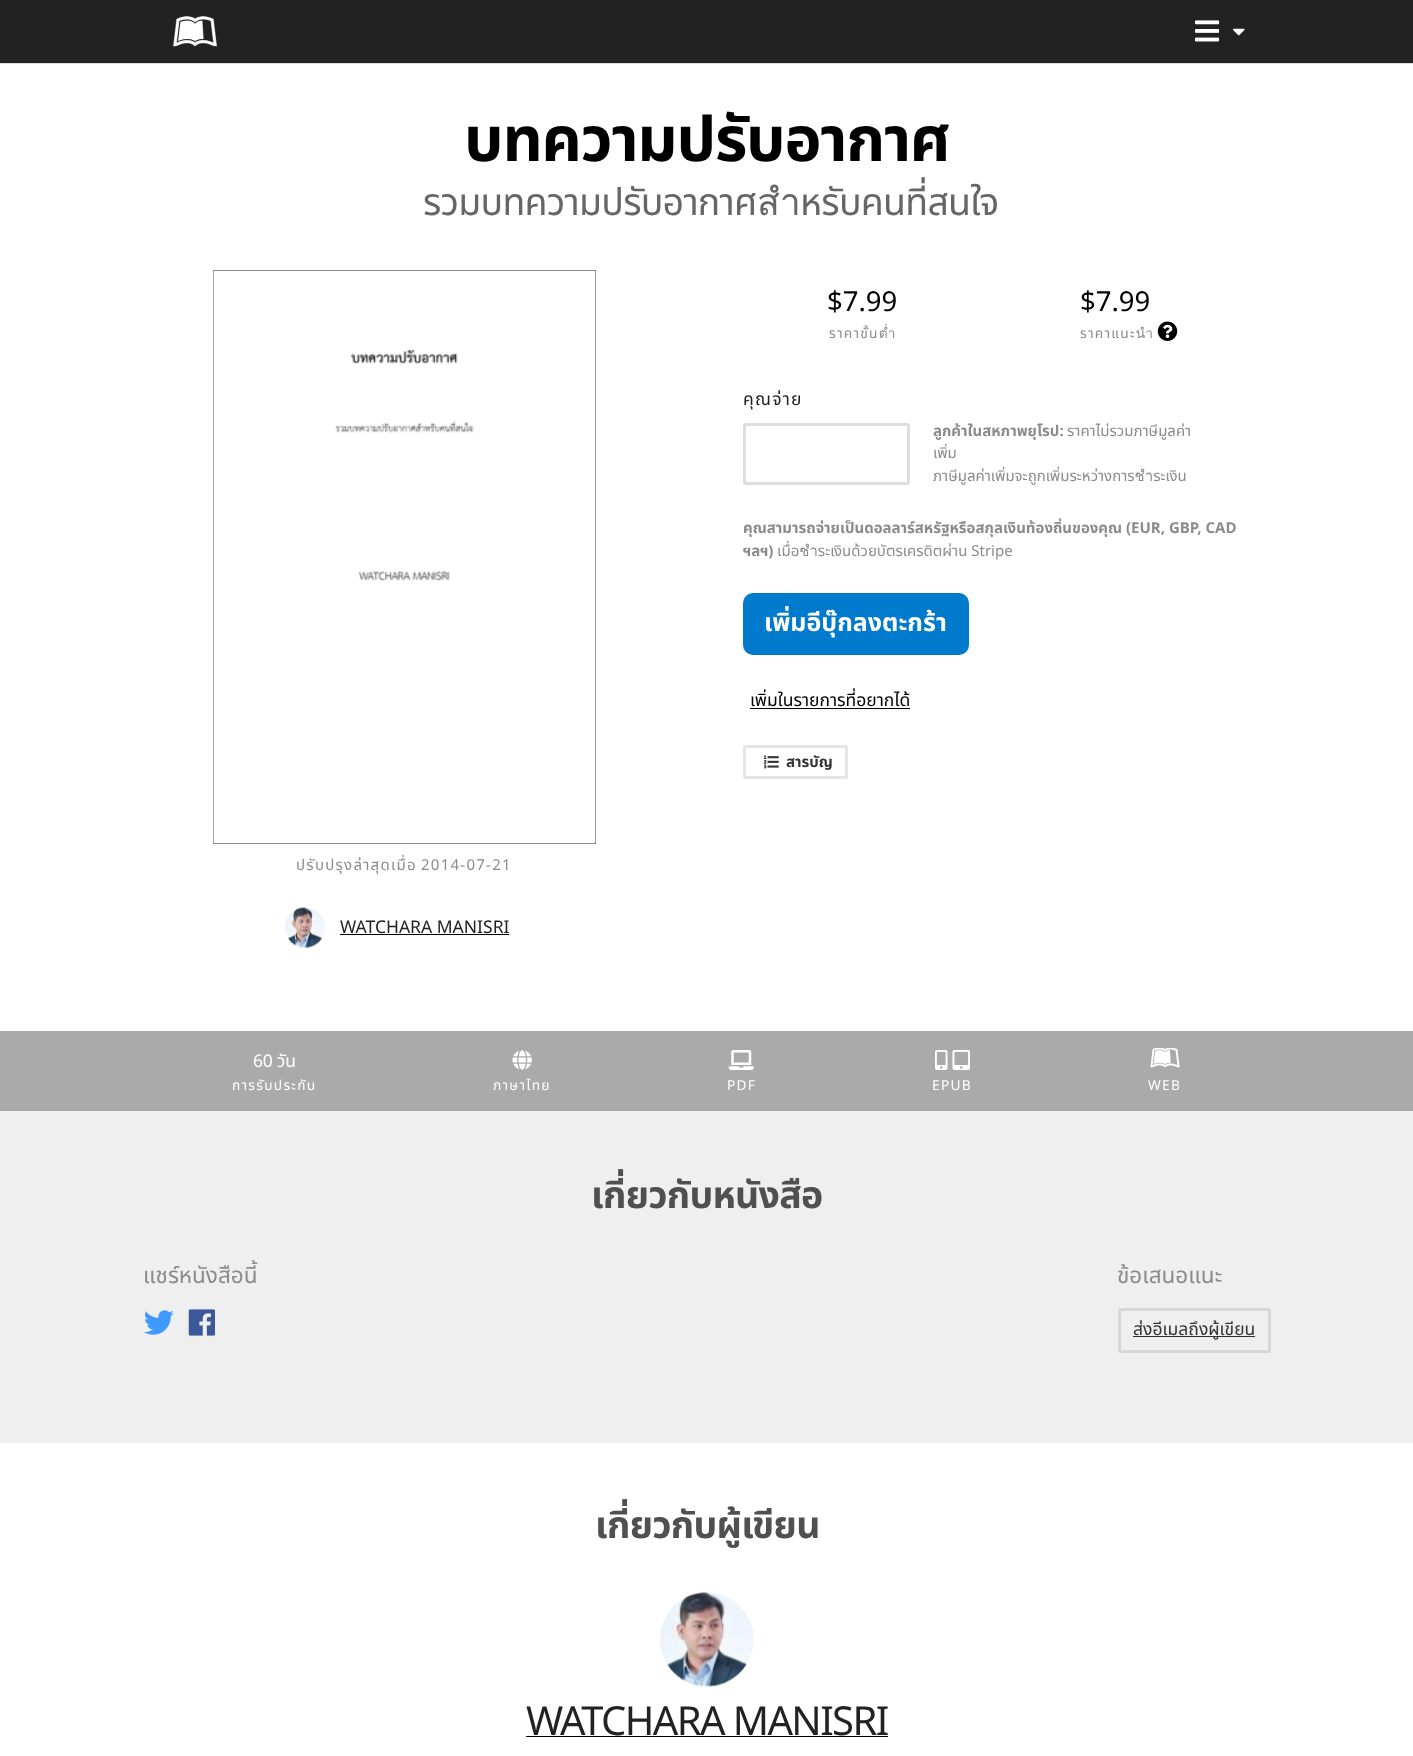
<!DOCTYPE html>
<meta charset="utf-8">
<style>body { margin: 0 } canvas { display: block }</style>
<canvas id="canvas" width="1413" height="1756"></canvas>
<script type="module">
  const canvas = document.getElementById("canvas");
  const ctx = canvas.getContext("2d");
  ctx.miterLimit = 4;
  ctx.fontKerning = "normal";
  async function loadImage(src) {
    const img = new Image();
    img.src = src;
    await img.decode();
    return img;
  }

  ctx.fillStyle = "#222222";
  ctx.fillRect(0, 0, 1413, 1756);
  ctx.drawImage(await loadImage("img1.png"), 173, 16, 44, 31);
  ctx.drawImage(await loadImage("img2.png"), 1195, 20, 25, 22);
  ctx.drawImage(await loadImage("img3.png"), 1233, 28, 12, 8);
  ctx.fillStyle = "#ffffff";
  ctx.fillRect(0, 64, 1413, 967);
  ctx.fillStyle = "#dedede";
  ctx.fillRect(0, 63, 1413, 1);
  ctx.letterSpacing = "-1.25px";
  ctx.font = "bold 62.5px Noto Sans Thai";
  ctx.fillStyle = "#000000";
  ctx.fillText("บทความปรับอากาศ", 464, 161);
  ctx.letterSpacing = "-0.75px";
  ctx.font = "37.5px Noto Sans Thai";
  ctx.fillStyle = "#666666";
  ctx.fillText("รวมบทความปรับอากาศสำหรับคนที่สนใจ", 423, 215);
  ctx.letterSpacing = "0px";
  ctx.font = "27.5px Noto Sans Thai";
  ctx.fillStyle = "#000000";
  ctx.fillText("$7.99", 827, 311);
  ctx.letterSpacing = "1.25px";
  ctx.font = "13.75px Noto Sans Thai";
  ctx.fillStyle = "#8b8b8b";
  ctx.fillText("ราคาขั้นต่ำ", 829, 338);
  ctx.letterSpacing = "0px";
  ctx.font = "27.5px Noto Sans Thai";
  ctx.fillStyle = "#000000";
  ctx.fillText("$7.99", 1080, 311);
  ctx.letterSpacing = "1.25px";
  ctx.font = "13.75px Noto Sans Thai";
  ctx.fillStyle = "#8b8b8b";
  ctx.fillText("ราคาแนะนำ", 1080, 338);
  ctx.drawImage(await loadImage("img4.png"), 1157, 321, 21, 20);
  ctx.font = "17.5px Noto Sans Thai";
  ctx.fillStyle = "#222222";
  ctx.fillText("คุณจ่าย", 743, 405);
  ctx.beginPath();
  ctx.roundRect(744.5, 424.5, 164, 59, 1.5);
  ctx.strokeStyle = "#dedede";
  ctx.lineWidth = 3;
  ctx.stroke();
  ctx.letterSpacing = "0px";
  ctx.font = "bold 15px Noto Sans Thai";
  ctx.fillStyle = "#8b8b8b";
  ctx.fillText("ลูกค้าในสหภาพยุโรป:", 933, 436);
  ctx.font = "15px Noto Sans Thai";
  ctx.fillText("ราคาไม่รวมภาษีมูลค่า", 1067, 436);
  ctx.fillText("เพิ่ม", 933, 458);
  ctx.fillText("ภาษีมูลค่าเพิ่มจะถูกเพิ่มระหว่างการชำระเงิน", 933, 481);
  ctx.font = "bold 15px Noto Sans Thai";
  ctx.fillText("คุณสามารถจ่ายเป็นดอลลาร์สหรัฐหรือสกุลเงินท้องถิ่นของคุณ (EUR, GBP, CAD", 743, 533);
  ctx.fillText("ฯลฯ)", 743, 556);
  ctx.font = "15px Noto Sans Thai";
  ctx.fillText("เมื่อชำระเงินด้วยบัตรเครดิตผ่าน Stripe", 777, 556);
  ctx.fillStyle = "#007acd";
  ctx.beginPath();
  ctx.roundRect(743, 593, 226, 62, 10);
  ctx.fill();
  ctx.font = "bold 25px Noto Sans Thai";
  ctx.fillStyle = "#ffffff";
  ctx.fillText("เพิ่มอีบุ๊กลงตะกร้า", 764, 631);
  ctx.font = "17.5px Noto Sans Thai";
  ctx.fillStyle = "#000000";
  ctx.fillText("เพิ่มในรายการที่อยากได้", 750, 706);
  ctx.fillRect(750, 708, 160, 1);
  ctx.beginPath();
  ctx.roundRect(744.5, 746.5, 102, 31, 0.5);
  ctx.strokeStyle = "#e6e6e6";
  ctx.stroke();
  ctx.drawImage(await loadImage("img5.png"), 763, 755, 16, 14);
  ctx.font = "bold 15px Noto Sans Thai";
  ctx.fillStyle = "#333333";
  ctx.fillText("สารบัญ", 786, 767);
  ctx.strokeStyle = "#8b8b8b";
  ctx.lineWidth = 1;
  ctx.strokeRect(213.5, 270.5, 382, 573);
  ctx.drawImage(await loadImage("img6.png"), 213, 271, 383, 572);
  ctx.letterSpacing = "1.25px";
  ctx.wordSpacing = "-1px";
  ctx.font = "15px Noto Sans Thai";
  ctx.fillStyle = "#8b8b8b";
  ctx.fillText("ปรับปรุงล่าสุดเมื่อ 2014-07-21", 296, 870);
  ctx.drawImage(await loadImage("img7.png"), 285, 907, 40, 41);
  ctx.letterSpacing = "0px";
  ctx.wordSpacing = "0px";
  ctx.font = "17.5px Noto Sans Thai";
  ctx.fillStyle = "#222222";
  ctx.fillText("WATCHARA MANISRI", 340, 933);
  ctx.fillStyle = "#000000";
  ctx.fillRect(340, 934, 169, 1);
  ctx.fillStyle = "#aaaaaa";
  ctx.fillRect(0, 1031, 1413, 80);
  ctx.letterSpacing = "-0.25px";
  ctx.fillStyle = "#ffffff";
  ctx.fillText("60 วัน", 253, 1067);
  ctx.letterSpacing = "1.25px";
  ctx.font = "13.75px Noto Sans Thai";
  ctx.fillText("การรับประกัน", 232, 1090);
  ctx.drawImage(await loadImage("img8.png"), 512, 1050, 20, 20);
  ctx.fillText("ภาษาไทย", 493, 1090);
  ctx.drawImage(await loadImage("img9.png"), 728, 1050, 26, 20);
  ctx.fillText("PDF", 727, 1090);
  ctx.drawImage(await loadImage("img10.png"), 935, 1050, 13, 20);
  ctx.drawImage(await loadImage("img11.png"), 952, 1050, 18, 20);
  ctx.fillText("EPUB", 932, 1090);
  ctx.drawImage(await loadImage("img12.png"), 1150, 1048, 30, 20);
  ctx.fillText("WEB", 1148, 1090);
  ctx.fillStyle = "#efefef";
  ctx.fillRect(0, 1111, 1413, 332);
  ctx.letterSpacing = "-0.75px";
  ctx.font = "bold 37.5px Noto Sans Thai";
  ctx.fillStyle = "#505050";
  ctx.fillText("เกี่ยวกับหนังสือ", 591, 1208);
  ctx.letterSpacing = "0px";
  ctx.font = "22.5px Noto Sans Thai";
  ctx.fillStyle = "#8b8b8b";
  ctx.fillText("แชร์หนังสือนี้", 143, 1283);
  ctx.drawImage(await loadImage("img13.png"), 144, 1310, 30, 25);
  ctx.drawImage(await loadImage("img14.png"), 188, 1309, 27, 27);
  ctx.fillText("ข้อเสนอแนะ", 1117, 1283);
  ctx.beginPath();
  ctx.roundRect(1119.5, 1309.5, 150, 42, 1);
  ctx.strokeStyle = "#d7d7d7";
  ctx.lineWidth = 3;
  ctx.stroke();
  ctx.fillStyle = "#313131";
  ctx.fillRect(1133, 1336, 122, 1);
  ctx.font = "17.5px Noto Sans Thai";
  ctx.fillStyle = "#333333";
  ctx.fillText("ส่งอีเมลถึงผู้เขียน", 1133, 1335);
  ctx.fillStyle = "#ffffff";
  ctx.fillRect(0, 1443, 1413, 313);
  ctx.letterSpacing = "-0.75px";
  ctx.font = "bold 37.5px Noto Sans Thai";
  ctx.fillStyle = "#505050";
  ctx.fillText("เกี่ยวกับผู้เขียน", 595, 1538);
  ctx.drawImage(await loadImage("img15.png"), 660, 1592, 94, 95);
  ctx.letterSpacing = "-1.6px";
  ctx.font = "40px Noto Sans Thai";
  ctx.fillStyle = "#222222";
  ctx.fillText("WATCHARA MANISRI", 526, 1735);
  ctx.fillStyle = "#000000";
  ctx.fillRect(526, 1736, 362, 1);
</script>
